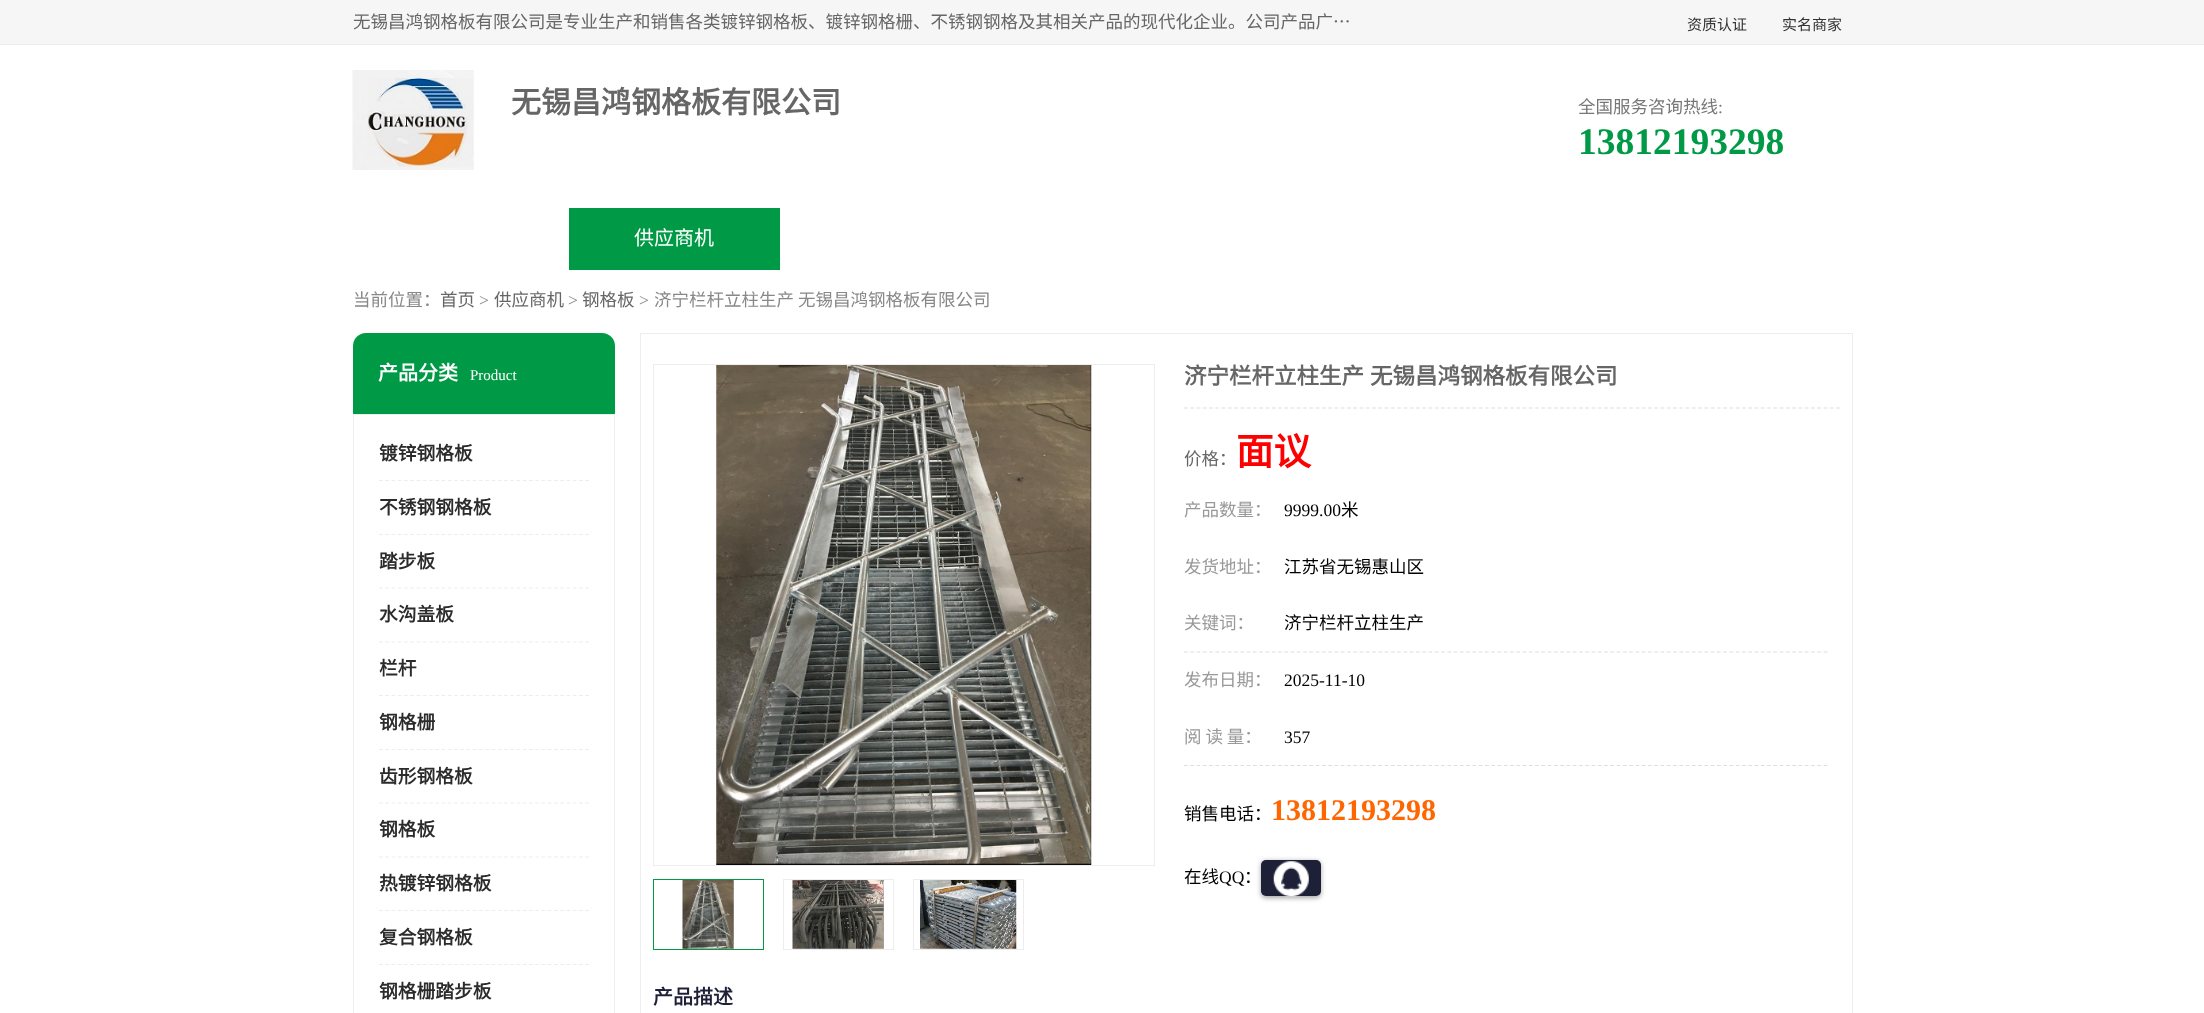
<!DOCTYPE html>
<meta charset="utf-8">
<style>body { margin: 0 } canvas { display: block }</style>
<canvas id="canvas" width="2204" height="1013"></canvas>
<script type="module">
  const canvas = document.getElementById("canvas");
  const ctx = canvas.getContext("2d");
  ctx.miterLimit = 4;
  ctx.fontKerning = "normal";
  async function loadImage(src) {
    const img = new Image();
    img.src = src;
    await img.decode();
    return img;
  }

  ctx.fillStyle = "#ffffff";
  ctx.fillRect(0, 0, 2204, 1013);
  ctx.fillStyle = "#f6f6f6";
  ctx.fillRect(0, 0, 2204, 44);
  ctx.fillStyle = "#ededed";
  ctx.fillRect(0, 44, 2204, 1);
  ctx.font = "17.5px Noto Sans CJK SC";
  ctx.fillStyle = "#666666";
  ctx.fillText("无锡昌鸿钢格板有限公司是专业生产和销售各类镀锌钢格板、镀锌钢格栅、不锈钢钢格及其相关产品的现代化企业。公司产品广…", 353, 28);
  ctx.font = "15px Noto Sans CJK SC";
  ctx.fillStyle = "#333333";
  ctx.fillText("资质认证", 1687, 30);
  ctx.fillText("实名商家", 1782, 30);
  ctx.drawImage(await loadImage("img1.png"), 352, 70, 122, 100);
  ctx.font = "bold 30px Noto Sans CJK SC";
  ctx.fillStyle = "#666666";
  ctx.fillText("无锡昌鸿钢格板有限公司", 511, 113);
  ctx.font = "17.5px Noto Sans CJK SC";
  ctx.fillStyle = "#777777";
  ctx.fillText("全国服务咨询热线", 1578, 113);
  ctx.font = "17.5px Liberation Serif";
  ctx.fillText(":", 1718, 113);
  ctx.font = "bold 37.5px Liberation Serif";
  ctx.fillStyle = "#009946";
  ctx.fillText("13812193298", 1578, 154);
  ctx.fillRect(569, 208, 211, 62);
  ctx.font = "20px Noto Sans CJK SC";
  ctx.fillStyle = "#ffffff";
  ctx.fillText("供应商机", 634, 245);
  ctx.font = "17.5px Noto Sans CJK SC";
  ctx.fillStyle = "#888888";
  ctx.fillText("当前位置：", 353, 306);
  ctx.fillStyle = "#666666";
  ctx.fillText("首页", 440, 306);
  ctx.font = "17.5px Liberation Serif";
  ctx.fillStyle = "#888888";
  ctx.fillText(">", 479, 306);
  ctx.font = "17.5px Noto Sans CJK SC";
  ctx.fillStyle = "#666666";
  ctx.fillText("供应商机", 494, 306);
  ctx.font = "17.5px Liberation Serif";
  ctx.fillStyle = "#888888";
  ctx.fillText(">", 568, 306);
  ctx.font = "17.5px Noto Sans CJK SC";
  ctx.fillStyle = "#666666";
  ctx.fillText("钢格板", 582, 306);
  ctx.font = "17.5px Liberation Serif";
  ctx.fillStyle = "#888888";
  ctx.fillText(">", 639, 306);
  ctx.font = "17.5px Noto Sans CJK SC";
  ctx.fillText("济宁栏杆立柱生产 无锡昌鸿钢格板有限公司", 654, 306);
  ctx.fillStyle = "#009946";
  ctx.beginPath();
  ctx.roundRect(353, 333, 262, 81, [13, 13, 0, 0]);
  ctx.fill();
  ctx.font = "bold 20px Noto Sans CJK SC";
  ctx.fillStyle = "#ffffff";
  ctx.fillText("产品分类", 378, 380);
  ctx.font = "15px Liberation Serif";
  ctx.fillText("Product", 470, 380);
  ctx.strokeStyle = "#ededed";
  ctx.strokeRect(353.5, 414.5, 261, 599);
  ctx.beginPath();
  ctx.moveTo(379, 480.5);
  ctx.lineTo(589, 480.5);
  ctx.lineWidth = 1.2;
  ctx.setLineDash([3.75, 2.5]);
  ctx.stroke();
  ctx.font = "bold 18.75px Noto Sans CJK SC";
  ctx.fillStyle = "#2b2b2b";
  ctx.fillText("镀锌钢格板", 379, 460);
  ctx.beginPath();
  ctx.moveTo(379, 534.5);
  ctx.lineTo(589, 534.5);
  ctx.stroke();
  ctx.fillText("不锈钢钢格板", 379, 514);
  ctx.beginPath();
  ctx.moveTo(379, 588);
  ctx.lineTo(589, 588);
  ctx.stroke();
  ctx.fillText("踏步板", 379, 568);
  ctx.beginPath();
  ctx.moveTo(379, 642);
  ctx.lineTo(589, 642);
  ctx.stroke();
  ctx.fillText("水沟盖板", 379, 621);
  ctx.beginPath();
  ctx.moveTo(379, 695.5);
  ctx.lineTo(589, 695.5);
  ctx.stroke();
  ctx.fillText("栏杆", 379, 675);
  ctx.beginPath();
  ctx.moveTo(379, 749.5);
  ctx.lineTo(589, 749.5);
  ctx.stroke();
  ctx.fillText("钢格栅", 379, 729);
  ctx.beginPath();
  ctx.moveTo(379, 803);
  ctx.lineTo(589, 803);
  ctx.stroke();
  ctx.fillText("齿形钢格板", 379, 783);
  ctx.beginPath();
  ctx.moveTo(379, 857);
  ctx.lineTo(589, 857);
  ctx.stroke();
  ctx.fillText("钢格板", 379, 836);
  ctx.beginPath();
  ctx.moveTo(379, 910.5);
  ctx.lineTo(589, 910.5);
  ctx.stroke();
  ctx.fillText("热镀锌钢格板", 379, 890);
  ctx.beginPath();
  ctx.moveTo(379, 964.5);
  ctx.lineTo(589, 964.5);
  ctx.stroke();
  ctx.fillText("复合钢格板", 379, 944);
  ctx.fillText("钢格栅踏步板", 379, 998);
  ctx.lineWidth = 1;
  ctx.setLineDash([]);
  ctx.strokeRect(640.5, 333.5, 1212, 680);
  ctx.strokeRect(653.5, 364.5, 501, 501);
  ctx.drawImage(await loadImage("img2.png"), 716, 365, 376, 500);
  ctx.strokeStyle = "#009946";
  ctx.strokeRect(653.5, 879.5, 110, 70);
  ctx.drawImage(await loadImage("img3.png"), 682, 880, 52, 69);
  ctx.strokeStyle = "#ededed";
  ctx.strokeRect(783.5, 879.5, 110, 70);
  ctx.drawImage(await loadImage("img4.png"), 792, 880, 92, 69);
  ctx.strokeRect(913.5, 879.5, 110, 70);
  ctx.drawImage(await loadImage("img5.png"), 920, 880, 97, 69);
  ctx.beginPath();
  ctx.moveTo(1184, 408);
  ctx.lineTo(1840, 408);
  ctx.strokeStyle = "#dedede";
  ctx.lineWidth = 1.2;
  ctx.setLineDash([3.75, 2.52]);
  ctx.stroke();
  ctx.wordSpacing = "1px";
  ctx.font = "bold 22.5px Noto Sans CJK SC";
  ctx.fillStyle = "#666666";
  ctx.fillText("济宁栏杆立柱生产 无锡昌鸿钢格板有限公司", 1184, 384);
  ctx.wordSpacing = "0px";
  ctx.font = "17.5px Noto Sans CJK SC";
  ctx.fillText("价格：", 1184, 465);
  ctx.font = "bold 37.5px Noto Sans CJK SC";
  ctx.fillStyle = "#ff0000";
  ctx.fillText("面议", 1236, 465);
  ctx.font = "17.5px Noto Sans CJK SC";
  ctx.fillStyle = "#999999";
  ctx.fillText("产品数量：", 1184, 516);
  ctx.font = "17.5px Liberation Serif";
  ctx.fillStyle = "#000000";
  ctx.fillText("9999.00", 1284, 516);
  ctx.font = "17.5px Noto Sans CJK SC";
  ctx.fillText("米", 1341, 516);
  ctx.fillStyle = "#999999";
  ctx.fillText("发货地址：", 1184, 573);
  ctx.fillStyle = "#000000";
  ctx.fillText("江苏省无锡惠山区", 1284, 573);
  ctx.beginPath();
  ctx.moveTo(1184, 652);
  ctx.lineTo(1827.5, 652);
  ctx.stroke();
  ctx.fillStyle = "#999999";
  ctx.fillText("关键词：", 1184, 629);
  ctx.fillStyle = "#000000";
  ctx.fillText("济宁栏杆立柱生产", 1284, 629);
  ctx.fillStyle = "#999999";
  ctx.fillText("发布日期：", 1184, 686);
  ctx.font = "17.5px Liberation Serif";
  ctx.fillStyle = "#000000";
  ctx.fillText("2025-11-10", 1284, 686);
  ctx.beginPath();
  ctx.moveTo(1184, 765.5);
  ctx.lineTo(1827.5, 765.5);
  ctx.stroke();
  ctx.font = "17.5px Noto Sans CJK SC";
  ctx.fillStyle = "#999999";
  ctx.fillText("阅 读 量：", 1184, 743);
  ctx.font = "17.5px Liberation Serif";
  ctx.fillStyle = "#000000";
  ctx.fillText("357", 1284, 743);
  ctx.font = "17.5px Noto Sans CJK SC";
  ctx.fillText("销售电话：", 1184, 820);
  ctx.font = "bold 30px Liberation Serif";
  ctx.fillStyle = "#ff6600";
  ctx.fillText("13812193298", 1271, 820);
  ctx.fillStyle = "#a5a5a5";
  ctx.filter = "blur(2.5px)";
  ctx.beginPath();
  ctx.roundRect(1261, 861, 60, 37, 5);
  ctx.fill();
  ctx.filter = "none";
  ctx.fillStyle = "#1e2037";
  ctx.beginPath();
  ctx.roundRect(1261, 860, 60, 36, 5);
  ctx.fill();
  ctx.font = "17.5px Noto Sans CJK SC";
  ctx.fillStyle = "#000000";
  ctx.fillText("在线", 1184, 883);
  ctx.font = "17.5px Liberation Serif";
  ctx.fillText("QQ", 1219, 883);
  ctx.font = "17.5px Noto Sans CJK SC";
  ctx.fillText("：", 1244, 883);
  ctx.drawImage(await loadImage("img6.png"), 1273, 861, 36, 36);
  ctx.font = "bold 20px Noto Sans CJK SC";
  ctx.fillStyle = "#1e2037";
  ctx.fillText("产品描述", 653, 1004);
</script>
